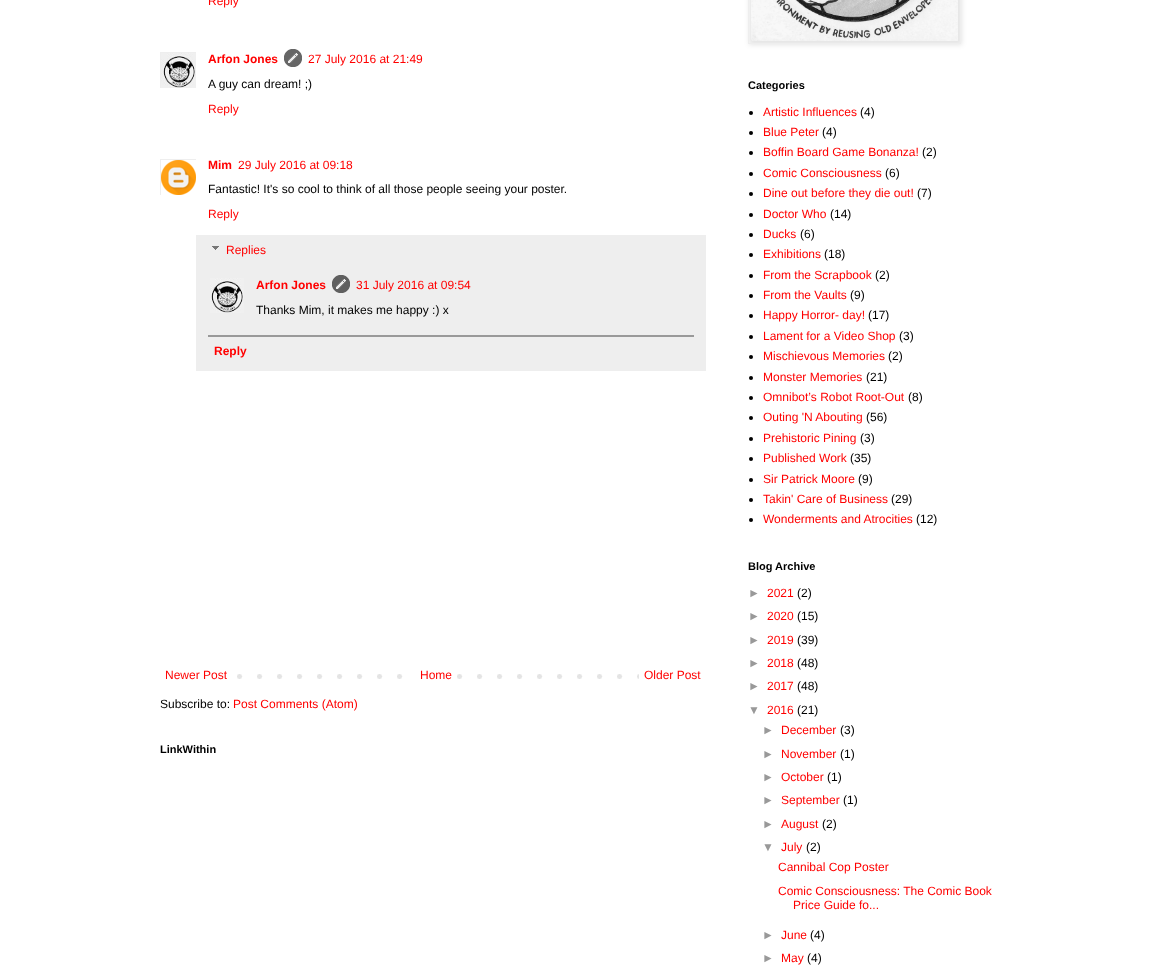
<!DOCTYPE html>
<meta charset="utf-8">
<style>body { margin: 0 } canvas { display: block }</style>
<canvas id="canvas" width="1176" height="978"></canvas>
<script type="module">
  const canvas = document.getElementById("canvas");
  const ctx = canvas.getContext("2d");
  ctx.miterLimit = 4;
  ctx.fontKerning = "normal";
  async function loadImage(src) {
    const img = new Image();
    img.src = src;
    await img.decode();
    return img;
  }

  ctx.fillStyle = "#ffffff";
  ctx.fillRect(0, 0, 1176, 978);
  ctx.font = "12px Liberation Sans";
  ctx.fillStyle = "#ff0000";
  ctx.fillText("Reply", 208, 5);
  ctx.save();
  ctx.beginPath();
  ctx.rect(160, 52, 36, 36);
  ctx.clip();
  ctx.strokeStyle = "#eeeeee";
  ctx.strokeRect(160.5, 52.5, 37, 37);
  ctx.restore();
  ctx.drawImage(await loadImage("img1.png"), 161, 53, 35, 35);
  ctx.font = "bold 12px Liberation Sans";
  ctx.fillText("Arfon Jones", 208, 63);
  ctx.drawImage(await loadImage("img2.png"), 284, 49, 18, 18);
  ctx.font = "12px Liberation Sans";
  ctx.fillText("27 July 2016 at 21:49", 308, 63);
  ctx.fillStyle = "#000000";
  ctx.fillText("A guy can dream! ;)", 208, 88);
  ctx.fillStyle = "#ff0000";
  ctx.fillText("Reply", 208, 113);
  ctx.save();
  ctx.beginPath();
  ctx.rect(160, 159, 36, 36);
  ctx.clip();
  ctx.strokeStyle = "#eeeeee";
  ctx.strokeRect(160.5, 159.5, 36, 36);
  ctx.restore();
  ctx.drawImage(await loadImage("img3.png"), 161, 160, 35, 35);
  ctx.font = "bold 12px Liberation Sans";
  ctx.fillText("Mim", 208, 169);
  ctx.font = "12px Liberation Sans";
  ctx.fillText("29 July 2016 at 09:18", 238, 169);
  ctx.fillStyle = "#000000";
  ctx.fillText("Fantastic! It's so cool to think of all those people seeing your poster.", 208, 193);
  ctx.fillStyle = "#ff0000";
  ctx.fillText("Reply", 208, 218);
  ctx.fillStyle = "#eeeeee";
  ctx.fillRect(196, 235, 510, 136);
  ctx.drawImage(await loadImage("img4.png"), 212, 246, 7, 4);
  ctx.fillStyle = "#ff0000";
  ctx.fillText("Replies", 226, 254);
  ctx.drawImage(await loadImage("img5.png"), 210, 278, 34, 35);
  ctx.font = "bold 12px Liberation Sans";
  ctx.fillText("Arfon Jones", 256, 289);
  ctx.drawImage(await loadImage("img6.png"), 332, 275, 18, 18);
  ctx.font = "12px Liberation Sans";
  ctx.fillText("31 July 2016 at 09:54", 356, 289);
  ctx.fillStyle = "#000000";
  ctx.fillText("Thanks Mim, it makes me happy :) x", 256, 314);
  ctx.fillStyle = "#999999";
  ctx.fillRect(208, 335, 486, 2);
  ctx.font = "bold 12px Liberation Sans";
  ctx.fillStyle = "#ff0000";
  ctx.fillText("Reply", 214, 355);
  ctx.drawImage(await loadImage("img7.png"), 237, 674, 402, 5);
  ctx.font = "12px Liberation Sans";
  ctx.fillText("Newer Post", 165, 679);
  ctx.fillStyle = "#ffffff";
  ctx.fillRect(417, 674, 26, 5);
  ctx.fillStyle = "#ff0000";
  ctx.fillText("Home", 420, 679);
  ctx.fillText("Older Post", 644, 679);
  ctx.fillStyle = "#000000";
  ctx.fillText("Subscribe to:", 160, 708);
  ctx.fillStyle = "#ff0000";
  ctx.fillText("Post Comments (Atom)", 233, 708);
  ctx.font = "bold 11px Liberation Sans";
  ctx.fillStyle = "#000000";
  ctx.fillText("LinkWithin", 160, 753);
  ctx.fillStyle = "rgba(0, 0, 0, 0.1)";
  ctx.filter = "blur(2.5px)";
  ctx.beginPath();
  ctx.rect(749, -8, 213, 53);
  ctx.fill();
  ctx.filter = "none";
  ctx.strokeStyle = "#eeeeee";
  ctx.strokeRect(748.5, -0.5, 212, 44);
  ctx.drawImage(await loadImage("img8.png"), 751, 0, 207, 41);
  ctx.fillStyle = "#000000";
  ctx.fillText("Categories", 748, 89);
  ctx.beginPath();
  ctx.arc(751, 113, 2, 0, Math.PI * 2);
  ctx.fill();
  ctx.font = "12px Liberation Sans";
  ctx.fillStyle = "#ff0000";
  ctx.fillText("Artistic Influences", 763, 116);
  ctx.fillStyle = "#000000";
  ctx.fillText("(4)", 860, 116);
  ctx.beginPath();
  ctx.arc(751, 133, 2, 0, Math.PI * 2);
  ctx.fill();
  ctx.fillStyle = "#ff0000";
  ctx.fillText("Blue Peter", 763, 136);
  ctx.fillStyle = "#000000";
  ctx.fillText("(4)", 822, 136);
  ctx.beginPath();
  ctx.arc(751, 153, 2, 0, Math.PI * 2);
  ctx.fill();
  ctx.fillStyle = "#ff0000";
  ctx.fillText("Boffin Board Game Bonanza!", 763, 156);
  ctx.fillStyle = "#000000";
  ctx.fillText("(2)", 922, 156);
  ctx.beginPath();
  ctx.arc(751, 174, 2, 0, Math.PI * 2);
  ctx.fill();
  ctx.fillStyle = "#ff0000";
  ctx.fillText("Comic Consciousness", 763, 177);
  ctx.fillStyle = "#000000";
  ctx.fillText("(6)", 885, 177);
  ctx.beginPath();
  ctx.arc(751, 194, 2, 0, Math.PI * 2);
  ctx.fill();
  ctx.fillStyle = "#ff0000";
  ctx.fillText("Dine out before they die out!", 763, 197);
  ctx.fillStyle = "#000000";
  ctx.fillText("(7)", 917, 197);
  ctx.beginPath();
  ctx.arc(751, 215, 2, 0, Math.PI * 2);
  ctx.fill();
  ctx.fillStyle = "#ff0000";
  ctx.fillText("Doctor Who", 763, 218);
  ctx.fillStyle = "#000000";
  ctx.fillText("(14)", 830, 218);
  ctx.beginPath();
  ctx.arc(751, 235, 2, 0, Math.PI * 2);
  ctx.fill();
  ctx.fillStyle = "#ff0000";
  ctx.fillText("Ducks", 763, 238);
  ctx.fillStyle = "#000000";
  ctx.fillText("(6)", 800, 238);
  ctx.beginPath();
  ctx.arc(751, 255, 2, 0, Math.PI * 2);
  ctx.fill();
  ctx.fillStyle = "#ff0000";
  ctx.fillText("Exhibitions", 763, 258);
  ctx.fillStyle = "#000000";
  ctx.fillText("(18)", 824, 258);
  ctx.beginPath();
  ctx.arc(751, 276, 2, 0, Math.PI * 2);
  ctx.fill();
  ctx.fillStyle = "#ff0000";
  ctx.fillText("From the Scrapbook", 763, 279);
  ctx.fillStyle = "#000000";
  ctx.fillText("(2)", 875, 279);
  ctx.beginPath();
  ctx.arc(751, 296, 2, 0, Math.PI * 2);
  ctx.fill();
  ctx.fillStyle = "#ff0000";
  ctx.fillText("From the Vaults", 763, 299);
  ctx.fillStyle = "#000000";
  ctx.fillText("(9)", 850, 299);
  ctx.beginPath();
  ctx.arc(751, 316, 2, 0, Math.PI * 2);
  ctx.fill();
  ctx.fillStyle = "#ff0000";
  ctx.fillText("Happy Horror- day!", 763, 319);
  ctx.fillStyle = "#000000";
  ctx.fillText("(17)", 868, 319);
  ctx.beginPath();
  ctx.arc(751, 337, 2, 0, Math.PI * 2);
  ctx.fill();
  ctx.fillStyle = "#ff0000";
  ctx.fillText("Lament for a Video Shop", 763, 340);
  ctx.fillStyle = "#000000";
  ctx.fillText("(3)", 899, 340);
  ctx.beginPath();
  ctx.arc(751, 357, 2, 0, Math.PI * 2);
  ctx.fill();
  ctx.fillStyle = "#ff0000";
  ctx.fillText("Mischievous Memories", 763, 360);
  ctx.fillStyle = "#000000";
  ctx.fillText("(2)", 888, 360);
  ctx.beginPath();
  ctx.arc(751, 378, 2, 0, Math.PI * 2);
  ctx.fill();
  ctx.fillStyle = "#ff0000";
  ctx.fillText("Monster Memories", 763, 381);
  ctx.fillStyle = "#000000";
  ctx.fillText("(21)", 866, 381);
  ctx.beginPath();
  ctx.arc(751, 398, 2, 0, Math.PI * 2);
  ctx.fill();
  ctx.fillStyle = "#ff0000";
  ctx.fillText("Omnibot’s Robot Root-Out", 763, 401);
  ctx.fillStyle = "#000000";
  ctx.fillText("(8)", 908, 401);
  ctx.beginPath();
  ctx.arc(751, 418, 2, 0, Math.PI * 2);
  ctx.fill();
  ctx.fillStyle = "#ff0000";
  ctx.fillText("Outing 'N Abouting", 763, 421);
  ctx.fillStyle = "#000000";
  ctx.fillText("(56)", 866, 421);
  ctx.beginPath();
  ctx.arc(751, 439, 2, 0, Math.PI * 2);
  ctx.fill();
  ctx.fillStyle = "#ff0000";
  ctx.fillText("Prehistoric Pining", 763, 442);
  ctx.fillStyle = "#000000";
  ctx.fillText("(3)", 860, 442);
  ctx.beginPath();
  ctx.arc(751, 459, 2, 0, Math.PI * 2);
  ctx.fill();
  ctx.fillStyle = "#ff0000";
  ctx.fillText("Published Work", 763, 462);
  ctx.fillStyle = "#000000";
  ctx.fillText("(35)", 850, 462);
  ctx.beginPath();
  ctx.arc(751, 480, 2, 0, Math.PI * 2);
  ctx.fill();
  ctx.fillStyle = "#ff0000";
  ctx.fillText("Sir Patrick Moore", 763, 483);
  ctx.fillStyle = "#000000";
  ctx.fillText("(9)", 858, 483);
  ctx.beginPath();
  ctx.arc(751, 500, 2, 0, Math.PI * 2);
  ctx.fill();
  ctx.fillStyle = "#ff0000";
  ctx.fillText("Takin' Care of Business", 763, 503);
  ctx.fillStyle = "#000000";
  ctx.fillText("(29)", 891, 503);
  ctx.beginPath();
  ctx.arc(751, 520, 2, 0, Math.PI * 2);
  ctx.fill();
  ctx.fillStyle = "#ff0000";
  ctx.fillText("Wonderments and Atrocities", 763, 523);
  ctx.fillStyle = "#000000";
  ctx.fillText("(12)", 916, 523);
  ctx.font = "bold 11px Liberation Sans";
  ctx.fillText("Blog Archive", 748, 570);
  ctx.font = "12px Liberation Sans";
  ctx.fillStyle = "#999999";
  ctx.fillText("►", 748, 597);
  ctx.fillStyle = "#ff0000";
  ctx.fillText("2021", 767, 597);
  ctx.fillStyle = "#000000";
  ctx.fillText("(2)", 797, 597);
  ctx.fillStyle = "#999999";
  ctx.fillText("►", 748, 620);
  ctx.fillStyle = "#ff0000";
  ctx.fillText("2020", 767, 620);
  ctx.fillStyle = "#000000";
  ctx.fillText("(15)", 797, 620);
  ctx.fillStyle = "#999999";
  ctx.fillText("►", 748, 644);
  ctx.fillStyle = "#ff0000";
  ctx.fillText("2019", 767, 644);
  ctx.fillStyle = "#000000";
  ctx.fillText("(39)", 797, 644);
  ctx.fillStyle = "#999999";
  ctx.fillText("►", 748, 667);
  ctx.fillStyle = "#ff0000";
  ctx.fillText("2018", 767, 667);
  ctx.fillStyle = "#000000";
  ctx.fillText("(48)", 797, 667);
  ctx.fillStyle = "#999999";
  ctx.fillText("►", 748, 690);
  ctx.fillStyle = "#ff0000";
  ctx.fillText("2017", 767, 690);
  ctx.fillStyle = "#000000";
  ctx.fillText("(48)", 797, 690);
  ctx.fillStyle = "#999999";
  ctx.fillText("▼", 748, 714);
  ctx.fillStyle = "#ff0000";
  ctx.fillText("2016", 767, 714);
  ctx.fillStyle = "#000000";
  ctx.fillText("(21)", 797, 714);
  ctx.fillStyle = "#999999";
  ctx.fillText("►", 762, 734);
  ctx.fillStyle = "#ff0000";
  ctx.fillText("December", 781, 734);
  ctx.fillStyle = "#000000";
  ctx.fillText("(3)", 840, 734);
  ctx.fillStyle = "#999999";
  ctx.fillText("►", 762, 758);
  ctx.fillStyle = "#ff0000";
  ctx.fillText("November", 781, 758);
  ctx.fillStyle = "#000000";
  ctx.fillText("(1)", 840, 758);
  ctx.fillStyle = "#999999";
  ctx.fillText("►", 762, 781);
  ctx.fillStyle = "#ff0000";
  ctx.fillText("October", 781, 781);
  ctx.fillStyle = "#000000";
  ctx.fillText("(1)", 827, 781);
  ctx.fillStyle = "#999999";
  ctx.fillText("►", 762, 804);
  ctx.fillStyle = "#ff0000";
  ctx.fillText("September", 781, 804);
  ctx.fillStyle = "#000000";
  ctx.fillText("(1)", 843, 804);
  ctx.fillStyle = "#999999";
  ctx.fillText("►", 762, 828);
  ctx.fillStyle = "#ff0000";
  ctx.fillText("August", 781, 828);
  ctx.fillStyle = "#000000";
  ctx.fillText("(2)", 822, 828);
  ctx.fillStyle = "#999999";
  ctx.fillText("▼", 762, 851);
  ctx.fillStyle = "#ff0000";
  ctx.fillText("July", 781, 851);
  ctx.fillStyle = "#000000";
  ctx.fillText("(2)", 806, 851);
  ctx.fillStyle = "#ff0000";
  ctx.fillText("Cannibal Cop Poster", 778, 871);
  ctx.fillText("Comic Consciousness: The Comic Book", 778, 895);
  ctx.fillText("Price Guide fo...", 793, 909);
  ctx.fillStyle = "#999999";
  ctx.fillText("►", 762, 939);
  ctx.fillStyle = "#ff0000";
  ctx.fillText("June", 781, 939);
  ctx.fillStyle = "#000000";
  ctx.fillText("(4)", 810, 939);
  ctx.fillStyle = "#999999";
  ctx.fillText("►", 762, 962);
  ctx.fillStyle = "#ff0000";
  ctx.fillText("May", 781, 962);
  ctx.fillStyle = "#000000";
  ctx.fillText("(4)", 807, 962);
</script>
